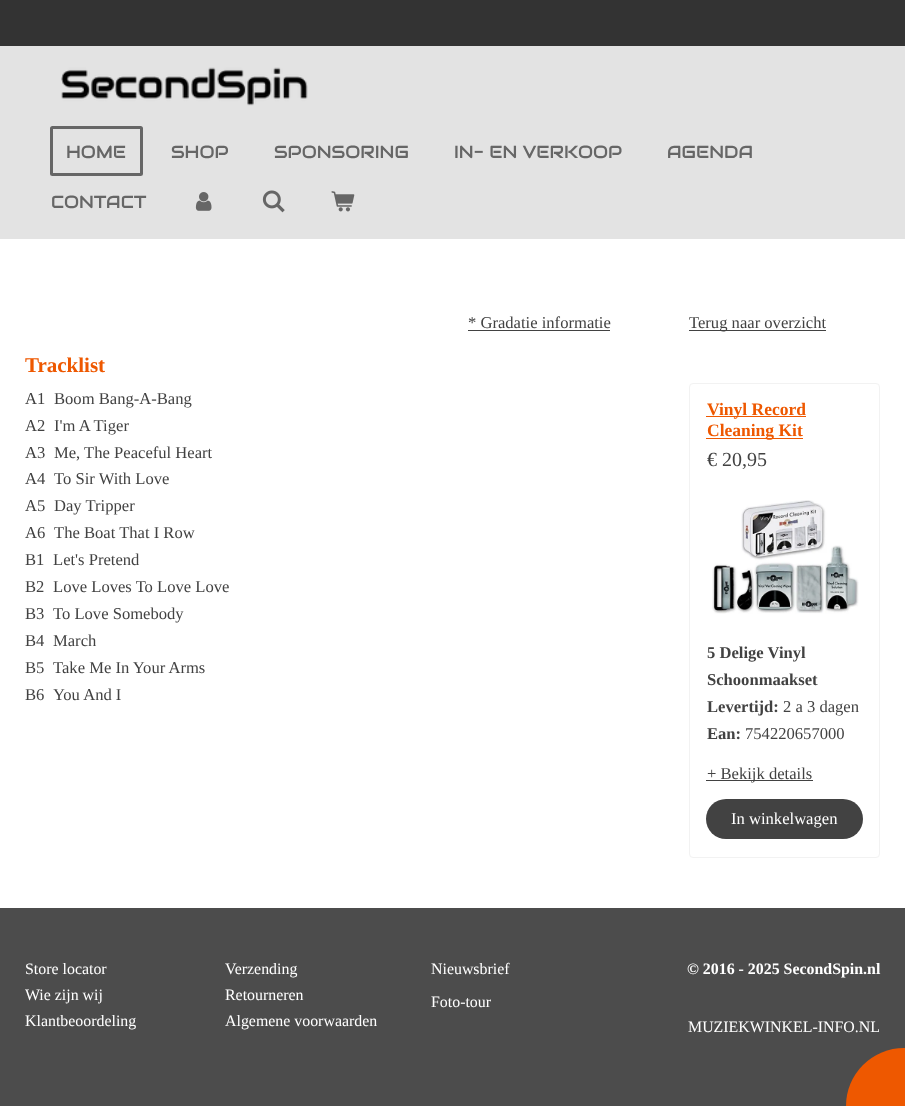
<!DOCTYPE html>
<meta charset="utf-8">
<style>body { margin: 0 } canvas { display: block }</style>
<canvas id="canvas" width="905" height="1106"></canvas>
<script type="module">
  const canvas = document.getElementById("canvas");
  const ctx = canvas.getContext("2d");
  ctx.miterLimit = 4;
  ctx.fontKerning = "normal";
  async function loadImage(src) {
    const img = new Image();
    img.src = src;
    await img.decode();
    return img;
  }

  ctx.fillStyle = "#ffffff";
  ctx.fillRect(0, 0, 905, 1106);
  ctx.fillStyle = "#e3e3e3";
  ctx.fillRect(0, 46, 905, 193);
  ctx.fillStyle = "#333333";
  ctx.fillRect(0, 0, 905, 46);
  ctx.drawImage(await loadImage("img1.png"), 61, 67, 247, 39);
  ctx.beginPath();
  ctx.roundRect(51.5, 127.5, 90, 47, 1);
  ctx.strokeStyle = "#666666";
  ctx.lineWidth = 3;
  ctx.stroke();
  ctx.font = "17.5px Audiowide";
  ctx.fillStyle = "#666666";
  ctx.fillText("HOME", 66, 158);
  ctx.fillText("SHOP", 171, 158);
  ctx.fillText("SPONSORING", 274, 158);
  ctx.fillText("IN- EN VERKOOP", 454, 158);
  ctx.fillText("AGENDA", 667, 158);
  ctx.fillText("CONTACT", 51, 208);
  ctx.drawImage(await loadImage("img2.png"), 195, 192, 17, 19);
  ctx.drawImage(await loadImage("img3.png"), 262, 190, 23, 23);
  ctx.drawImage(await loadImage("img4.png"), 331, 191, 24, 21);
  ctx.font = "16.6px Liberation Serif";
  ctx.fillStyle = "#424242";
  ctx.fillText("* Gradatie informatie", 468, 328);
  ctx.fillRect(468, 330, 142, 1);
  ctx.fillRect(689, 330, 137, 1);
  ctx.fillText("Terug naar overzicht", 689, 328);
  ctx.font = "bold 21px Liberation Serif";
  ctx.fillStyle = "#ee5800";
  ctx.fillText("Tracklist", 25, 372);
  ctx.font = "16.6px Liberation Serif";
  ctx.fillStyle = "#424242";
  ctx.fillText("A1", 25, 404);
  ctx.fillText("Boom Bang-A-Bang", 54, 404);
  ctx.fillText("A2", 25, 431);
  ctx.fillText("I'm A Tiger", 54, 431);
  ctx.fillText("A3", 25, 458);
  ctx.fillText("Me, The Peaceful Heart", 54, 458);
  ctx.fillText("A4", 25, 484);
  ctx.fillText("To Sir With Love", 54, 484);
  ctx.fillText("A5", 25, 511);
  ctx.fillText("Day Tripper", 54, 511);
  ctx.fillText("A6", 25, 538);
  ctx.fillText("The Boat That I Row", 54, 538);
  ctx.fillText("B1", 25, 565);
  ctx.fillText("Let's Pretend", 53, 565);
  ctx.fillText("B2", 25, 592);
  ctx.fillText("Love Loves To Love Love", 53, 592);
  ctx.fillText("B3", 25, 619);
  ctx.fillText("To Love Somebody", 53, 619);
  ctx.fillText("B4", 25, 646);
  ctx.fillText("March", 53, 646);
  ctx.fillText("B5", 25, 673);
  ctx.fillText("Take Me In Your Arms", 53, 673);
  ctx.fillText("B6", 25, 700);
  ctx.fillText("You And I", 53, 700);
  ctx.beginPath();
  ctx.roundRect(689.5, 383.5, 190, 474, 3.5);
  ctx.strokeStyle = "#f2f2f2";
  ctx.lineWidth = 1;
  ctx.stroke();
  ctx.fillStyle = "#ee5800";
  ctx.fillRect(706, 416, 100, 1);
  ctx.font = "bold 17.5px Liberation Serif";
  ctx.fillText("Vinyl Record", 707, 415);
  ctx.fillRect(706, 438, 97, 1);
  ctx.fillText("Cleaning Kit", 707, 436);
  ctx.font = "20px Liberation Serif";
  ctx.fillStyle = "#424242";
  ctx.fillText("€ 20,95", 707, 466);
  ctx.drawImage(await loadImage("img5.png"), 712, 500, 147, 114);
  ctx.font = "bold 16.6px Liberation Serif";
  ctx.fillText("5 Delige Vinyl", 707, 658);
  ctx.fillText("Schoonmaakset", 707, 685);
  ctx.fillText("Levertijd:", 707, 712);
  ctx.font = "16.6px Liberation Serif";
  ctx.fillText("2 a 3 dagen", 783, 712);
  ctx.font = "bold 16.6px Liberation Serif";
  ctx.fillText("Ean:", 707, 739);
  ctx.font = "16.6px Liberation Serif";
  ctx.fillText("754220657000", 745, 739);
  ctx.fillRect(706, 780, 107, 1);
  ctx.fillText("+ Bekijk details", 707, 779);
  ctx.beginPath();
  ctx.roundRect(706, 799, 157, 40, 20);
  ctx.fill();
  ctx.fillStyle = "#ffffff";
  ctx.fillText("In winkelwagen", 731, 824);
  ctx.fillStyle = "#4c4c4c";
  ctx.fillRect(0, 908, 905, 198);
  ctx.font = "15.9px Liberation Serif";
  ctx.fillStyle = "#ffffff";
  ctx.fillText("Store locator", 25, 974);
  ctx.fillText("Wie zijn wij", 25, 1000);
  ctx.fillText("Klantbeoordeling", 25, 1026);
  ctx.fillText("Verzending", 225, 974);
  ctx.fillText("Retourneren", 225, 1000);
  ctx.fillText("Algemene voorwaarden", 225, 1026);
  ctx.fillText("Nieuwsbrief", 431, 974);
  ctx.fillText("Foto-tour", 431, 1007);
  ctx.font = "bold 15.9px Liberation Serif";
  ctx.fillText("© 2016 - 2025 SecondSpin.nl", 687, 974);
  ctx.font = "15.9px Liberation Serif";
  ctx.fillText("MUZIEKWINKEL-INFO.NL", 688, 1032);
  ctx.fillStyle = "#ee5800";
  ctx.beginPath();
  ctx.roundRect(846, 1048, 59, 58, [58, 0, 0, 0]);
  ctx.fill();
</script>
